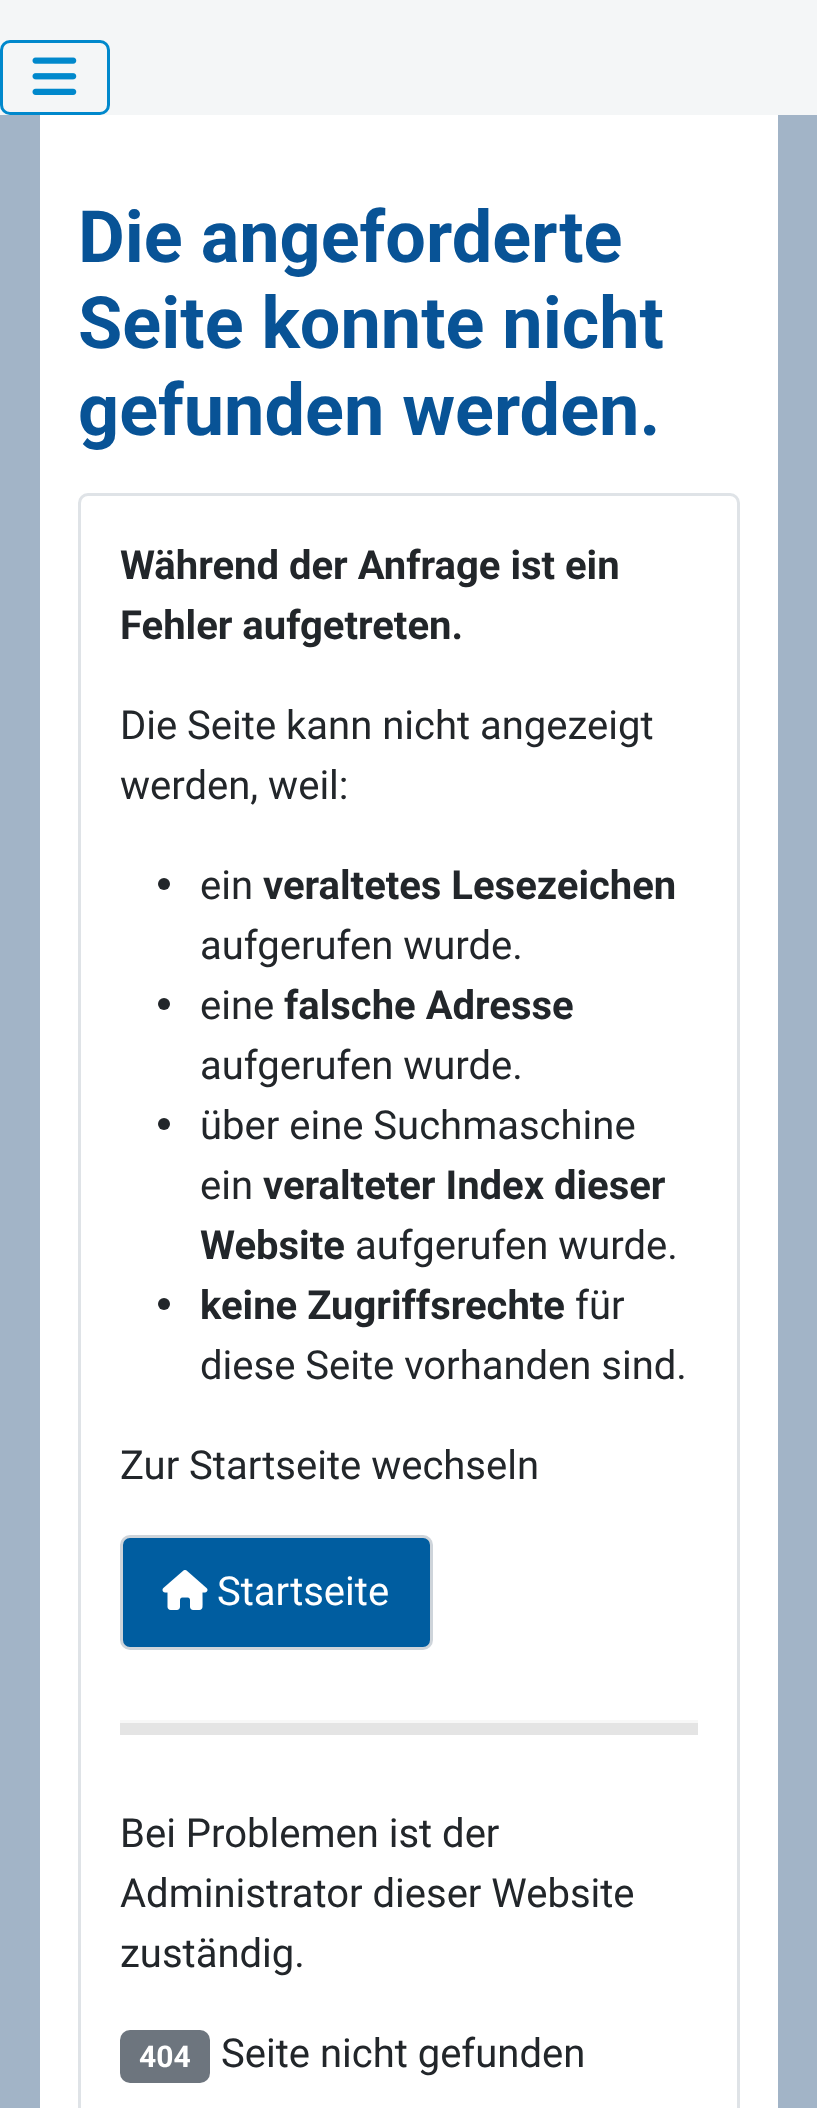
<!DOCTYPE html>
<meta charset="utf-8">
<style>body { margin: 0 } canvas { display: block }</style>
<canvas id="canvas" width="817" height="2108"></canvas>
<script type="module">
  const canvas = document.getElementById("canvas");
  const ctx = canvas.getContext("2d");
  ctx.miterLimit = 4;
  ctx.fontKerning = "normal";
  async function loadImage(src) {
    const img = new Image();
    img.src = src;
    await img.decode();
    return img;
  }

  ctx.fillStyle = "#a2b4c7";
  ctx.fillRect(0, 0, 817, 2108);
  ctx.fillStyle = "#f4f6f7";
  ctx.fillRect(0, 0, 817, 115);
  ctx.beginPath();
  ctx.roundRect(1.5, 41.5, 107, 72, 8.5);
  ctx.strokeStyle = "#0088cc";
  ctx.lineWidth = 3;
  ctx.stroke();
  ctx.drawImage(await loadImage("img1.png"), 32, 57, 45, 38);
  ctx.fillStyle = "#ffffff";
  ctx.fillRect(40, 115, 738, 1993);
  ctx.font = "bold 72px Roboto";
  ctx.fillStyle = "#085396";
  ctx.fillText("Die angeforderte", 78, 262);
  ctx.fillText("Seite konnte nicht", 78, 348);
  ctx.fillText("gefunden werden.", 78, 435);
  ctx.beginPath();
  ctx.roundRect(79.5, 494.5, 659, 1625, 8.5);
  ctx.strokeStyle = "#dfe3e7";
  ctx.stroke();
  ctx.font = "bold 40px Roboto";
  ctx.fillStyle = "#22262a";
  ctx.fillText("Während der Anfrage ist ein", 120, 579);
  ctx.fillText("Fehler aufgetreten.", 120, 639);
  ctx.font = "40px Roboto";
  ctx.fillText("Die Seite kann nicht angezeigt", 120, 739);
  ctx.fillText("werden, weil:", 120, 799);
  ctx.beginPath();
  ctx.arc(164, 884, 6, 0, Math.PI * 2);
  ctx.fill();
  ctx.fillText("ein", 200, 899);
  ctx.font = "bold 40px Roboto";
  ctx.fillText("veraltetes Lesezeichen", 263, 899);
  ctx.font = "40px Roboto";
  ctx.fillText("aufgerufen wurde.", 200, 959);
  ctx.beginPath();
  ctx.arc(164, 1004, 6, 0, Math.PI * 2);
  ctx.fill();
  ctx.fillText("eine", 200, 1019);
  ctx.font = "bold 40px Roboto";
  ctx.fillText("falsche Adresse", 284, 1019);
  ctx.font = "40px Roboto";
  ctx.fillText("aufgerufen wurde.", 200, 1079);
  ctx.beginPath();
  ctx.arc(164, 1124, 6, 0, Math.PI * 2);
  ctx.fill();
  ctx.fillText("über eine Suchmaschine", 200, 1139);
  ctx.fillText("ein", 200, 1199);
  ctx.font = "bold 40px Roboto";
  ctx.fillText("veralteter Index dieser", 263, 1199);
  ctx.fillText("Website", 200, 1259);
  ctx.font = "40px Roboto";
  ctx.fillText("aufgerufen wurde.", 355, 1259);
  ctx.beginPath();
  ctx.arc(164, 1304, 6, 0, Math.PI * 2);
  ctx.fill();
  ctx.font = "bold 40px Roboto";
  ctx.fillText("keine Zugriffsrechte", 200, 1319);
  ctx.font = "40px Roboto";
  ctx.fillText("für", 575, 1319);
  ctx.fillText("diese Seite vorhanden sind.", 200, 1379);
  ctx.fillText("Zur Startseite wechseln", 120, 1479);
  ctx.fillStyle = "#005da0";
  ctx.beginPath();
  ctx.roundRect(121.5, 1536.5, 310, 112, 8.5);
  ctx.fill();
  ctx.strokeStyle = "#ced4da";
  ctx.stroke();
  ctx.drawImage(await loadImage("img2.png"), 162, 1570, 46, 40);
  ctx.fillStyle = "#ffffff";
  ctx.fillText("Startseite", 217, 1605);
  ctx.fillStyle = "#e4e4e4";
  ctx.fillRect(120, 1723, 578, 12);
  ctx.fillStyle = "#f7f7f7";
  ctx.fillRect(120, 1720, 578, 3);
  ctx.fillStyle = "#22262a";
  ctx.fillText("Bei Problemen ist der", 120, 1847);
  ctx.fillText("Administrator dieser Website", 120, 1907);
  ctx.fillText("zuständig.", 120, 1967);
  ctx.fillStyle = "#6d757e";
  ctx.beginPath();
  ctx.roundRect(120, 2030, 90, 53, 10);
  ctx.fill();
  ctx.font = "bold 30px Roboto";
  ctx.fillStyle = "#ffffff";
  ctx.fillText("404", 139, 2067);
  ctx.font = "40px Roboto";
  ctx.fillStyle = "#22262a";
  ctx.fillText("Seite nicht gefunden", 221, 2067);
</script>
